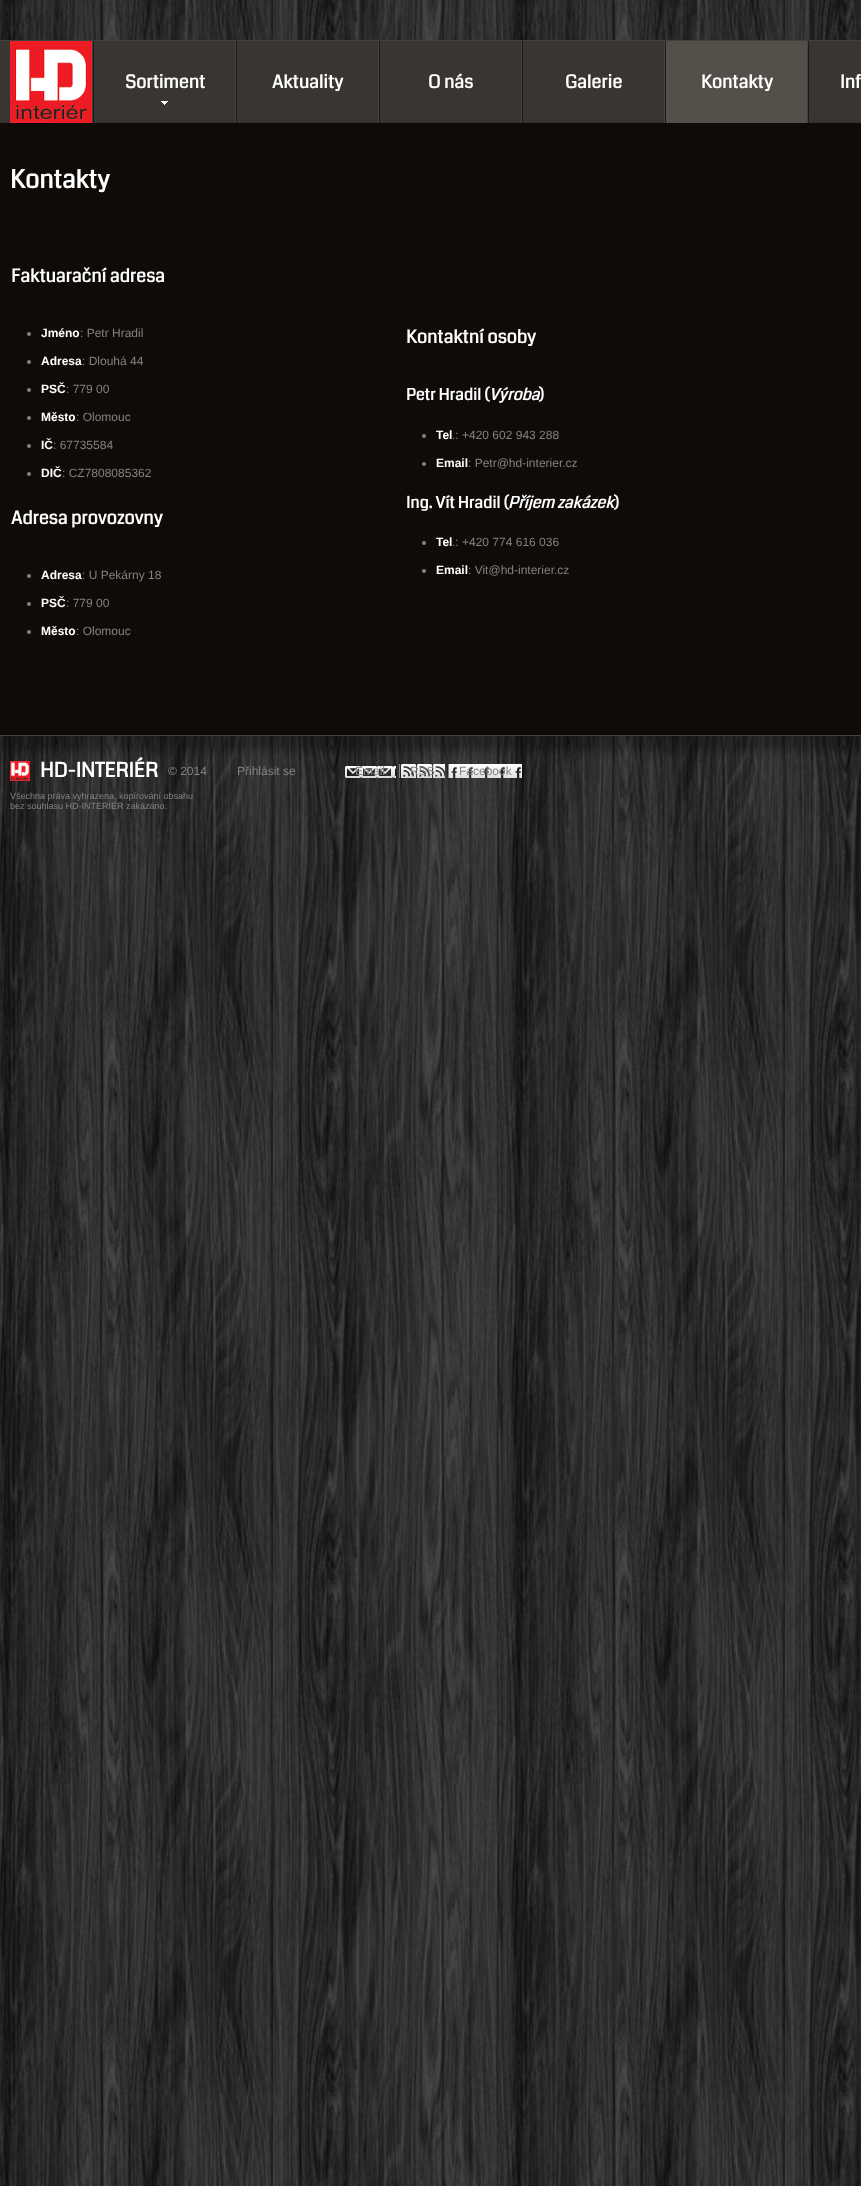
<!DOCTYPE html>
<meta charset="utf-8">
<style>body { margin: 0 } canvas { display: block }</style>
<canvas id="canvas" width="861" height="2186"></canvas>
<script type="module">
  const canvas = document.getElementById("canvas");
  const ctx = canvas.getContext("2d");
  ctx.miterLimit = 4;
  ctx.fontKerning = "normal";
  async function loadImage(src) {
    const img = new Image();
    img.src = src;
    await img.decode();
    return img;
  }

  ctx.fillStyle = "#ffffff";
  ctx.fillRect(0, 0, 861, 2186);
  ctx.drawImage(await loadImage("img1.png"), 0, 0, 861, 2186);
  ctx.fillStyle = "#393530";
  ctx.fillRect(0, 41, 861, 82);
  ctx.fillStyle = "#433f3b";
  ctx.fillRect(0, 40, 861, 1);
  ctx.fillStyle = "rgba(0, 0, 0, 0.3)";
  ctx.filter = "blur(5px)";
  ctx.beginPath();
  ctx.rect(-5, 128, 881, 623);
  ctx.fill();
  ctx.filter = "none";
  ctx.fillStyle = "#444343";
  ctx.fillRect(92, 41, 1, 82);
  ctx.fillStyle = "#ed1c24";
  ctx.fillRect(10, 41, 82, 82);
  ctx.drawImage(await loadImage("img2.png"), 10, 43, 82, 79);
  ctx.fillStyle = "#444343";
  ctx.fillRect(235, 41, 1, 82);
  ctx.fillStyle = "#1a1a1a";
  ctx.fillRect(93, 41, 1, 82);
  ctx.drawImage(await loadImage("img3.png"), 161, 101, 7, 4);
  ctx.font = "bold 18px Coda";
  ctx.fillStyle = "#ffffff";
  ctx.fillText("Sortiment", 125, 88);
  ctx.fillStyle = "#444343";
  ctx.fillRect(378, 41, 1, 82);
  ctx.fillStyle = "#1a1a1a";
  ctx.fillRect(236, 41, 1, 82);
  ctx.fillStyle = "#ffffff";
  ctx.fillText("Aktuality", 272, 88);
  ctx.fillStyle = "#444343";
  ctx.fillRect(521, 41, 1, 82);
  ctx.fillStyle = "#1a1a1a";
  ctx.fillRect(379, 41, 1, 82);
  ctx.fillStyle = "#ffffff";
  ctx.fillText("O nás", 428, 88);
  ctx.fillStyle = "#444343";
  ctx.fillRect(664, 41, 1, 82);
  ctx.fillStyle = "#1a1a1a";
  ctx.fillRect(522, 41, 1, 82);
  ctx.fillStyle = "#ffffff";
  ctx.fillText("Galerie", 565, 88);
  ctx.fillStyle = "#444343";
  ctx.fillRect(807, 41, 1, 82);
  ctx.fillStyle = "#1a1a1a";
  ctx.fillRect(665, 41, 1, 82);
  ctx.fillStyle = "#554f49";
  ctx.fillRect(666, 41, 141, 82);
  ctx.fillStyle = "#ffffff";
  ctx.fillText("Kontakty", 701, 88);
  ctx.fillStyle = "#1a1a1a";
  ctx.fillRect(808, 41, 1, 82);
  ctx.fillStyle = "#ffffff";
  ctx.fillText("Inf", 840, 88);
  ctx.fillStyle = "#0f0b08";
  ctx.fillRect(0, 123, 861, 612);
  ctx.fillStyle = "#444444";
  ctx.fillRect(0, 735, 861, 1);
  ctx.font = "bold 25px Coda";
  ctx.fillStyle = "#ffffff";
  ctx.fillText("Kontakty", 10, 188);
  ctx.font = "bold 18px Coda";
  ctx.fillText("Faktuarační adresa", 11, 282);
  ctx.fillStyle = "#838383";
  ctx.beginPath();
  ctx.arc(29, 334, 2, 0, Math.PI * 2);
  ctx.fill();
  ctx.font = "bold 12px Liberation Sans";
  ctx.fillStyle = "#ffffff";
  ctx.fillText("Jméno", 41, 337);
  ctx.font = "12px Liberation Sans";
  ctx.fillStyle = "#838383";
  ctx.fillText(": Petr Hradil", 80, 337);
  ctx.beginPath();
  ctx.arc(29, 362, 2, 0, Math.PI * 2);
  ctx.fill();
  ctx.font = "bold 12px Liberation Sans";
  ctx.fillStyle = "#ffffff";
  ctx.fillText("Adresa", 41, 365);
  ctx.font = "12px Liberation Sans";
  ctx.fillStyle = "#838383";
  ctx.fillText(": Dlouhá 44", 82, 365);
  ctx.beginPath();
  ctx.arc(29, 390, 2, 0, Math.PI * 2);
  ctx.fill();
  ctx.font = "bold 12px Liberation Sans";
  ctx.fillStyle = "#ffffff";
  ctx.fillText("PSČ", 41, 393);
  ctx.font = "12px Liberation Sans";
  ctx.fillStyle = "#838383";
  ctx.fillText(": 779 00", 66, 393);
  ctx.beginPath();
  ctx.arc(29, 418, 2, 0, Math.PI * 2);
  ctx.fill();
  ctx.font = "bold 12px Liberation Sans";
  ctx.fillStyle = "#ffffff";
  ctx.fillText("Město", 41, 421);
  ctx.font = "12px Liberation Sans";
  ctx.fillStyle = "#838383";
  ctx.fillText(": Olomouc", 76, 421);
  ctx.beginPath();
  ctx.arc(29, 446, 2, 0, Math.PI * 2);
  ctx.fill();
  ctx.font = "bold 12px Liberation Sans";
  ctx.fillStyle = "#ffffff";
  ctx.fillText("IČ", 41, 449);
  ctx.font = "12px Liberation Sans";
  ctx.fillStyle = "#838383";
  ctx.fillText(": 67735584", 53, 449);
  ctx.beginPath();
  ctx.arc(29, 474, 2, 0, Math.PI * 2);
  ctx.fill();
  ctx.font = "bold 12px Liberation Sans";
  ctx.fillStyle = "#ffffff";
  ctx.fillText("DIČ", 41, 477);
  ctx.font = "12px Liberation Sans";
  ctx.fillStyle = "#838383";
  ctx.fillText(": CZ7808085362", 62, 477);
  ctx.font = "bold 18px Coda";
  ctx.fillStyle = "#ffffff";
  ctx.fillText("Adresa provozovny", 11, 524);
  ctx.fillStyle = "#838383";
  ctx.beginPath();
  ctx.arc(29, 576, 2, 0, Math.PI * 2);
  ctx.fill();
  ctx.font = "bold 12px Liberation Sans";
  ctx.fillStyle = "#ffffff";
  ctx.fillText("Adresa", 41, 579);
  ctx.font = "12px Liberation Sans";
  ctx.fillStyle = "#838383";
  ctx.fillText(": U Pekárny 18", 82, 579);
  ctx.beginPath();
  ctx.arc(29, 604, 2, 0, Math.PI * 2);
  ctx.fill();
  ctx.font = "bold 12px Liberation Sans";
  ctx.fillStyle = "#ffffff";
  ctx.fillText("PSČ", 41, 607);
  ctx.font = "12px Liberation Sans";
  ctx.fillStyle = "#838383";
  ctx.fillText(": 779 00", 66, 607);
  ctx.beginPath();
  ctx.arc(29, 632, 2, 0, Math.PI * 2);
  ctx.fill();
  ctx.font = "bold 12px Liberation Sans";
  ctx.fillStyle = "#ffffff";
  ctx.fillText("Město", 41, 635);
  ctx.font = "12px Liberation Sans";
  ctx.fillStyle = "#838383";
  ctx.fillText(": Olomouc", 76, 635);
  ctx.font = "bold 18px Coda";
  ctx.fillStyle = "#ffffff";
  ctx.fillText("Kontaktní osoby", 406, 343);
  ctx.font = "bold 16px Coda";
  ctx.fillText("Petr Hradil (", 406, 400);
  ctx.font = "italic bold 16px Coda";
  ctx.fillText("Výroba", 489, 400);
  ctx.font = "bold 16px Coda";
  ctx.fillText(")", 539, 400);
  ctx.fillStyle = "#838383";
  ctx.beginPath();
  ctx.arc(424, 436, 2, 0, Math.PI * 2);
  ctx.fill();
  ctx.font = "bold 12px Liberation Sans";
  ctx.fillStyle = "#ffffff";
  ctx.fillText("Tel", 436, 439);
  ctx.font = "12px Liberation Sans";
  ctx.fillStyle = "#838383";
  ctx.fillText(".: +420 602 943 288", 452, 439);
  ctx.beginPath();
  ctx.arc(424, 464, 2, 0, Math.PI * 2);
  ctx.fill();
  ctx.font = "bold 12px Liberation Sans";
  ctx.fillStyle = "#ffffff";
  ctx.fillText("Email", 436, 467);
  ctx.font = "12px Liberation Sans";
  ctx.fillStyle = "#838383";
  ctx.fillText(": Petr@hd-interier.cz", 468, 467);
  ctx.font = "bold 16px Coda";
  ctx.fillStyle = "#ffffff";
  ctx.fillText("Ing. Vít Hradil (", 406, 508);
  ctx.font = "italic bold 16px Coda";
  ctx.fillText("Příjem zakázek", 508, 508);
  ctx.font = "bold 16px Coda";
  ctx.fillText(")", 614, 508);
  ctx.fillStyle = "#838383";
  ctx.beginPath();
  ctx.arc(424, 543, 2, 0, Math.PI * 2);
  ctx.fill();
  ctx.font = "bold 12px Liberation Sans";
  ctx.fillStyle = "#ffffff";
  ctx.fillText("Tel", 436, 546);
  ctx.font = "12px Liberation Sans";
  ctx.fillStyle = "#838383";
  ctx.fillText(".: +420 774 616 036", 452, 546);
  ctx.beginPath();
  ctx.arc(424, 571, 2, 0, Math.PI * 2);
  ctx.fill();
  ctx.font = "bold 12px Liberation Sans";
  ctx.fillStyle = "#ffffff";
  ctx.fillText("Email", 436, 574);
  ctx.font = "12px Liberation Sans";
  ctx.fillStyle = "#838383";
  ctx.fillText(": Vit@hd-interier.cz", 468, 574);
  ctx.drawImage(await loadImage("img4.png"), 10, 761, 20, 20);
  ctx.font = "bold 20px Coda";
  ctx.fillStyle = "#ffffff";
  ctx.fillText("HD-INTERIÉR", 40, 777);
  ctx.font = "12px Liberation Sans";
  ctx.fillStyle = "#838383";
  ctx.fillText("© 2014", 168, 775);
  ctx.font = "9px Liberation Sans";
  ctx.fillText("Všechna práva vyhrazena, kopírování obsahu", 10, 799);
  ctx.fillText("bez souhlasu HD-INTERIÉR zakázáno.", 10, 809);
  ctx.font = "12px Liberation Sans";
  ctx.fillText("Přihlásit se", 237, 775);
  ctx.drawImage(await loadImage("img5.png"), 345, 766, 51, 12);
  ctx.fillText("Email", 355, 775);
  ctx.drawImage(await loadImage("img6.png"), 400, 764, 45, 14);
  ctx.fillText("RSS", 410, 775);
  ctx.fillRect(399, 764, 1, 14);
  ctx.drawImage(await loadImage("img7.png"), 449, 764, 73, 14);
  ctx.fillText("Facebook", 459, 775);
  ctx.fillRect(448, 764, 1, 14);
</script>
